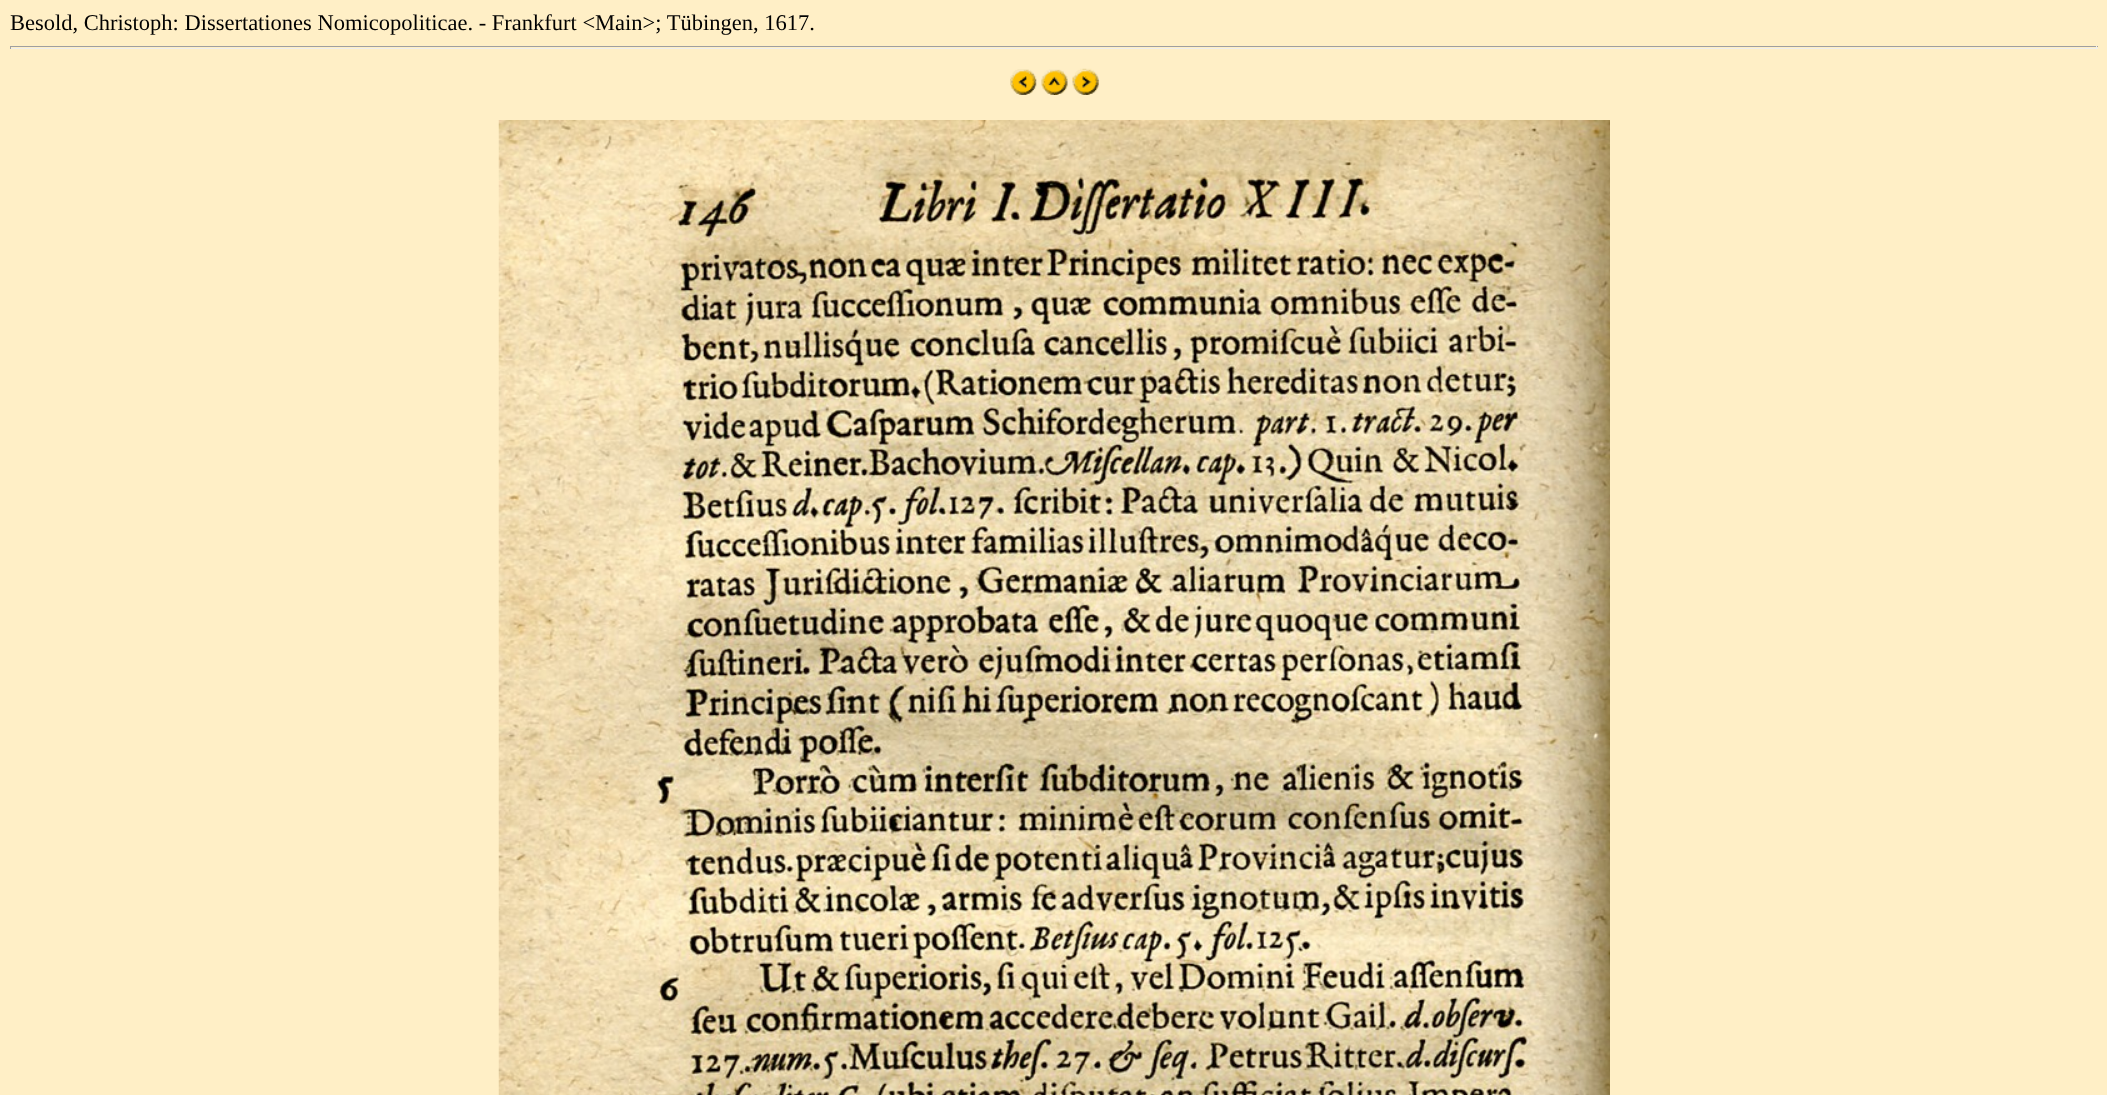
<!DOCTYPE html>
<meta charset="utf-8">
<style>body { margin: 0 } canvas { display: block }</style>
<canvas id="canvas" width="2107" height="1095"></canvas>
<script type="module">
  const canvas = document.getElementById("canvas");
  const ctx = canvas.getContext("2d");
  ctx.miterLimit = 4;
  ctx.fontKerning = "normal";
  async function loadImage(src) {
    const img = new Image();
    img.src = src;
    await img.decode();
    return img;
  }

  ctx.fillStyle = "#ffefc6";
  ctx.fillRect(0, 0, 2107, 1095);
  ctx.font = "22.5px Liberation Serif";
  ctx.fillStyle = "#000000";
  ctx.fillText("Besold, Christoph: Dissertationes Nomicopoliticae. - Frankfurt <Main>; Tübingen, 1617.", 10, 30);
  ctx.fillStyle = "#9f9f9f";
  ctx.fillRect(10, 46, 2088, 1);
  ctx.fillStyle = "#eeeeee";
  ctx.fillRect(2096, 46, 1, 3);
  ctx.fillRect(10, 48, 2088, 1);
  ctx.fillStyle = "#9f9f9f";
  ctx.fillRect(10, 46, 1, 3);
  ctx.drawImage(await loadImage("img1.png"), 1010, 69, 27, 26);
  ctx.drawImage(await loadImage("img2.png"), 1041, 69, 27, 26);
  ctx.drawImage(await loadImage("img3.png"), 1072, 68, 27, 27);
  ctx.drawImage(await loadImage("img4.png"), 498, 120, 1112, 975);
</script>
